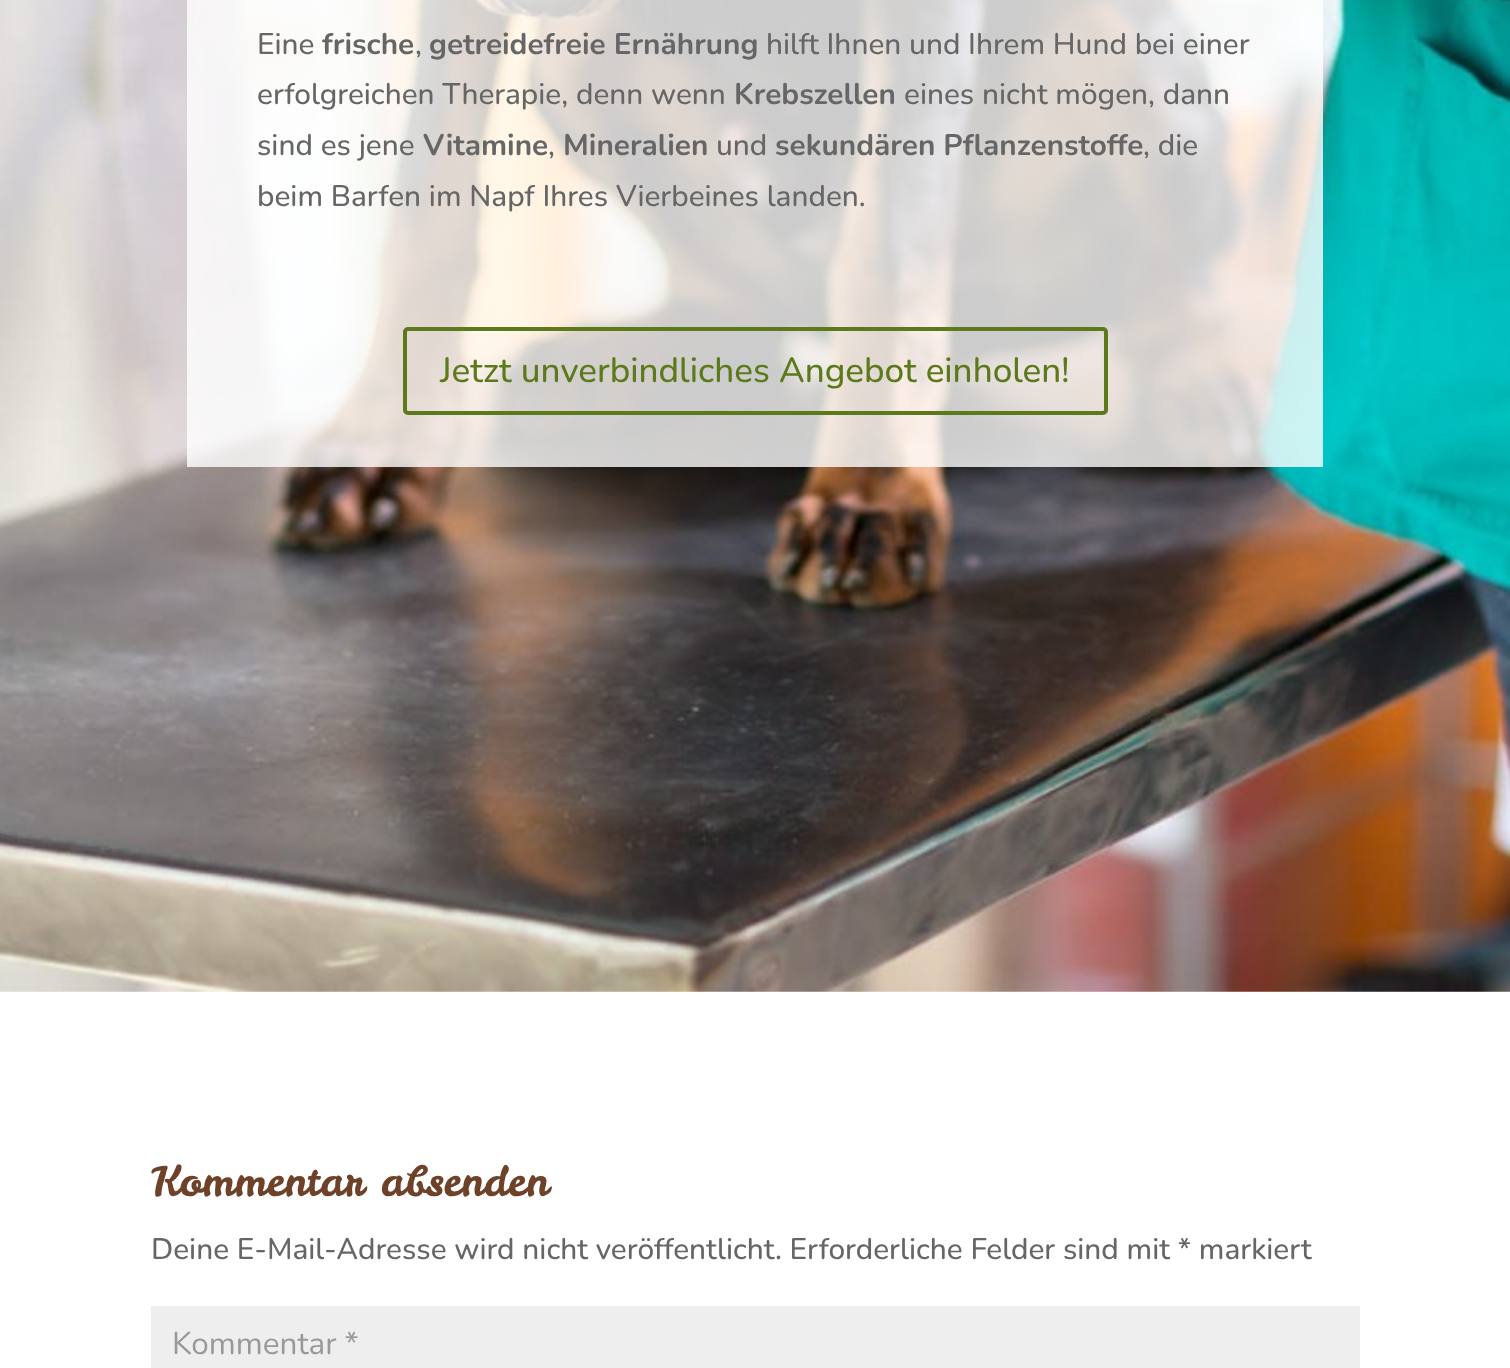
<!DOCTYPE html>
<meta charset="utf-8">
<style>body { margin: 0 } canvas { display: block }</style>
<canvas id="canvas" width="1510" height="1368"></canvas>
<script type="module">
  const canvas = document.getElementById("canvas");
  const ctx = canvas.getContext("2d");
  ctx.miterLimit = 4;
  ctx.fontKerning = "normal";
  async function loadImage(src) {
    const img = new Image();
    img.src = src;
    await img.decode();
    return img;
  }

  ctx.fillStyle = "#ffffff";
  ctx.fillRect(0, 0, 1510, 1368);
  ctx.drawImage(await loadImage("img1.png"), 0, 0, 1510, 992);
  ctx.fillStyle = "rgba(255, 255, 255, 0.8)";
  ctx.fillRect(187, 0, 1136, 467);
  ctx.font = "200 29.75px Nunito";
  ctx.fillStyle = "#666666";
  ctx.fillText("Eine", 257, 54);
  ctx.font = "200 29.75px 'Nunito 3'";
  ctx.fillText("frische", 322, 54);
  ctx.font = "200 29.75px Nunito";
  ctx.fillText(",", 415, 54);
  ctx.font = "200 29.75px 'Nunito 3'";
  ctx.fillText("getreidefreie Ernährung", 429, 54);
  ctx.font = "200 29.75px Nunito";
  ctx.fillText("hilft Ihnen und Ihrem Hund bei einer", 766, 54);
  ctx.fillText("erfolgreichen Therapie, denn wenn", 257, 104);
  ctx.font = "200 29.75px 'Nunito 3'";
  ctx.fillText("Krebszellen", 734, 104);
  ctx.font = "200 29.75px Nunito";
  ctx.fillText("eines nicht mögen, dann", 904, 104);
  ctx.fillText("sind es jene", 257, 155);
  ctx.font = "200 29.75px 'Nunito 3'";
  ctx.fillText("Vitamine", 423, 155);
  ctx.font = "200 29.75px Nunito";
  ctx.fillText(",", 548, 155);
  ctx.font = "200 29.75px 'Nunito 3'";
  ctx.fillText("Mineralien", 563, 155);
  ctx.font = "200 29.75px Nunito";
  ctx.fillText("und", 716, 155);
  ctx.font = "200 29.75px 'Nunito 3'";
  ctx.fillText("sekundären Pflanzenstoffe", 775, 155);
  ctx.font = "200 29.75px Nunito";
  ctx.fillText(", die", 1143, 155);
  ctx.fillText("beim Barfen im Napf Ihres Vierbeines landen.", 257, 206);
  ctx.beginPath();
  ctx.roundRect(405, 329, 701, 84, 3);
  ctx.strokeStyle = "#5c7a1c";
  ctx.lineWidth = 4;
  ctx.stroke();
  ctx.font = "200 35px Nunito";
  ctx.fillStyle = "#5c7a1c";
  ctx.fillText("Jetzt unverbindliches Angebot einholen!", 440, 382);
  ctx.font = "42px Leckerli One";
  ctx.fillStyle = "#6e4229";
  ctx.fillText("Kommentar absenden", 151, 1196);
  ctx.font = "200 29.75px Nunito";
  ctx.fillStyle = "#666666";
  ctx.fillText("Deine E-Mail-Adresse wird nicht veröffentlicht. Erforderliche Felder sind mit * markiert", 151, 1259);
  ctx.fillStyle = "#eeeeee";
  ctx.fillRect(151, 1306, 1209, 62);
  ctx.font = "200 31.5px 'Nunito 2'";
  ctx.fillStyle = "#999999";
  ctx.fillText("Kommentar *", 172, 1354);
</script>
